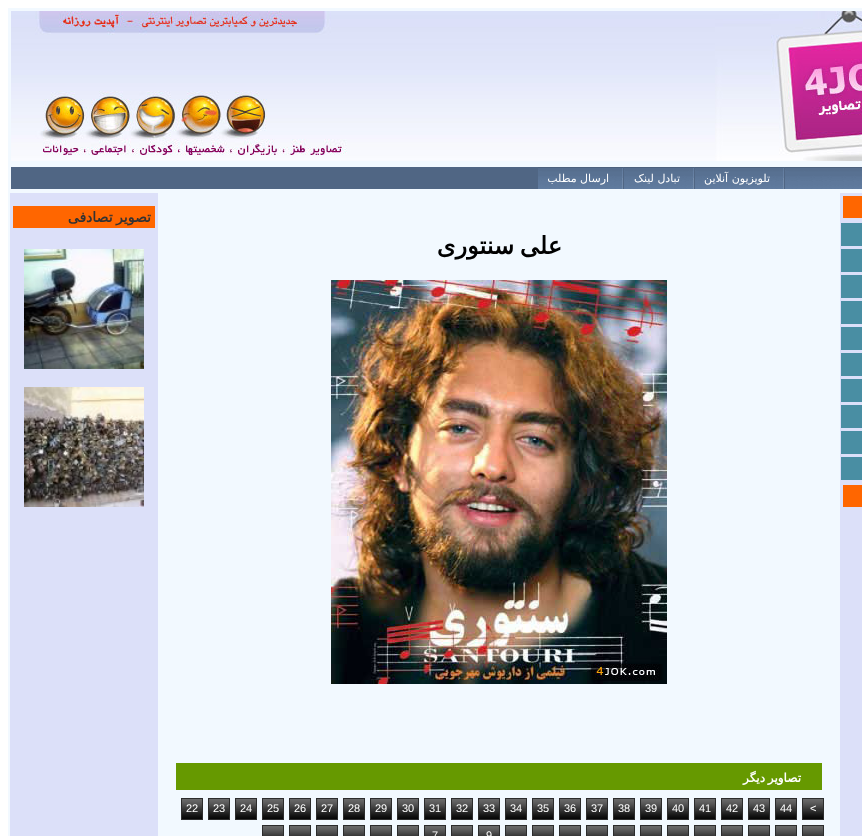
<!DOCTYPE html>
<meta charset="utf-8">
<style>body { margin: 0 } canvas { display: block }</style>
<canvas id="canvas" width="862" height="836"></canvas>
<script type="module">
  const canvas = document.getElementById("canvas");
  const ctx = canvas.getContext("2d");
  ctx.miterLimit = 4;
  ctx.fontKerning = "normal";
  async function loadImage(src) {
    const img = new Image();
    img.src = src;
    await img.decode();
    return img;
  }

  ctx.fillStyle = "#ffffff";
  ctx.fillRect(0, 0, 862, 836);
  ctx.fillStyle = "#f2f9ff";
  ctx.fillRect(8, 8, 854, 828);
  ctx.drawImage(await loadImage("img1.png"), 11, 11, 851, 150);
  ctx.fillStyle = "#506684";
  ctx.fillRect(11, 167, 774, 22);
  ctx.drawImage(await loadImage("img2.png"), 785, 167, 4, 22);
  ctx.drawImage(await loadImage("img3.png"), 789, 167, 73, 22);
  ctx.drawImage(await loadImage("img2.png"), 695, 167, 4, 22);
  ctx.drawImage(await loadImage("img4.png"), 699, 167, 85, 22);
  ctx.direction = "rtl";
  ctx.font = "11px DejaVu Sans";
  ctx.fillStyle = "#ffffff";
  ctx.fillText("تلویزیون آنلاین", 770, 182);
  ctx.drawImage(await loadImage("img2.png"), 624, 167, 4, 22);
  ctx.drawImage(await loadImage("img5.png"), 628, 167, 66, 22);
  ctx.fillText("تبادل لینک", 680, 182);
  ctx.drawImage(await loadImage("img2.png"), 538, 167, 4, 22);
  ctx.drawImage(await loadImage("img6.png"), 542, 167, 81, 22);
  ctx.fillText("ارسال مطلب", 609, 182);
  ctx.fillStyle = "#dce0f9";
  ctx.fillRect(840, 193, 22, 643);
  ctx.fillStyle = "#ff6600";
  ctx.fillRect(843, 196, 19, 22);
  ctx.fillStyle = "#498ea3";
  ctx.fillRect(841, 223, 21, 23);
  ctx.fillRect(841, 249, 21, 23);
  ctx.fillRect(841, 275, 21, 23);
  ctx.fillRect(841, 301, 21, 23);
  ctx.fillRect(841, 327, 21, 23);
  ctx.fillRect(841, 353, 21, 23);
  ctx.fillRect(841, 379, 21, 23);
  ctx.fillRect(841, 405, 21, 23);
  ctx.fillRect(841, 431, 21, 23);
  ctx.fillRect(841, 457, 21, 23);
  ctx.fillStyle = "#ff6600";
  ctx.fillRect(843, 485, 19, 22);
  ctx.fillStyle = "#dce0f9";
  ctx.fillRect(10, 193, 148, 643);
  ctx.fillStyle = "#ff6600";
  ctx.fillRect(13, 206, 142, 22);
  ctx.wordSpacing = "-1px";
  ctx.font = "bold 14px DejaVu Sans";
  ctx.fillStyle = "#333333";
  ctx.fillText("تصویر تصادفی", 151, 222);
  ctx.drawImage(await loadImage("img7.png"), 24, 249, 120, 120);
  ctx.drawImage(await loadImage("img8.png"), 24, 387, 120, 120);
  ctx.wordSpacing = "-2px";
  ctx.font = "bold 24px DejaVu Sans";
  ctx.fillStyle = "#000000";
  ctx.fillText("علی سنتوری", 562, 254);
  ctx.drawImage(await loadImage("img9.png"), 331, 280, 336, 404);
  ctx.fillStyle = "#669900";
  ctx.fillRect(176, 763, 646, 27);
  ctx.wordSpacing = "-1px";
  ctx.font = "bold 12px DejaVu Sans";
  ctx.fillStyle = "#ffffff";
  ctx.fillText("تصاویر دیگر", 801, 782);
  ctx.drawImage(await loadImage("img10.png"), 803, 799, 20, 20);
  ctx.strokeStyle = "#2c2c2c";
  ctx.strokeRect(802.5, 798.5, 21, 21);
  ctx.wordSpacing = "0px";
  ctx.direction = "ltr";
  ctx.font = "11px Liberation Sans";
  ctx.fillText("<", 810, 812);
  ctx.drawImage(await loadImage("img10.png"), 776, 799, 20, 20);
  ctx.strokeRect(775.5, 798.5, 21, 21);
  ctx.fillText("44", 780, 812);
  ctx.drawImage(await loadImage("img10.png"), 749, 799, 20, 20);
  ctx.strokeRect(748.5, 798.5, 21, 21);
  ctx.fillText("43", 753, 812);
  ctx.drawImage(await loadImage("img10.png"), 722, 799, 20, 20);
  ctx.strokeRect(721.5, 798.5, 21, 21);
  ctx.fillText("42", 726, 812);
  ctx.drawImage(await loadImage("img10.png"), 695, 799, 20, 20);
  ctx.strokeRect(694.5, 798.5, 21, 21);
  ctx.fillText("41", 699, 812);
  ctx.drawImage(await loadImage("img10.png"), 668, 799, 20, 20);
  ctx.strokeRect(667.5, 798.5, 21, 21);
  ctx.fillText("40", 672, 812);
  ctx.drawImage(await loadImage("img10.png"), 641, 799, 20, 20);
  ctx.strokeRect(640.5, 798.5, 21, 21);
  ctx.fillText("39", 645, 812);
  ctx.drawImage(await loadImage("img10.png"), 614, 799, 20, 20);
  ctx.strokeRect(613.5, 798.5, 21, 21);
  ctx.fillText("38", 618, 812);
  ctx.drawImage(await loadImage("img10.png"), 587, 799, 20, 20);
  ctx.strokeRect(586.5, 798.5, 21, 21);
  ctx.fillText("37", 591, 812);
  ctx.drawImage(await loadImage("img10.png"), 560, 799, 20, 20);
  ctx.strokeRect(559.5, 798.5, 21, 21);
  ctx.fillText("36", 564, 812);
  ctx.drawImage(await loadImage("img10.png"), 533, 799, 20, 20);
  ctx.strokeRect(532.5, 798.5, 21, 21);
  ctx.fillText("35", 537, 812);
  ctx.drawImage(await loadImage("img10.png"), 506, 799, 20, 20);
  ctx.strokeRect(505.5, 798.5, 21, 21);
  ctx.fillText("34", 510, 812);
  ctx.drawImage(await loadImage("img10.png"), 479, 799, 20, 20);
  ctx.strokeRect(478.5, 798.5, 21, 21);
  ctx.fillText("33", 483, 812);
  ctx.drawImage(await loadImage("img10.png"), 452, 799, 20, 20);
  ctx.strokeRect(451.5, 798.5, 21, 21);
  ctx.fillText("32", 456, 812);
  ctx.drawImage(await loadImage("img10.png"), 425, 799, 20, 20);
  ctx.strokeRect(424.5, 798.5, 21, 21);
  ctx.fillText("31", 429, 812);
  ctx.drawImage(await loadImage("img10.png"), 398, 799, 20, 20);
  ctx.strokeRect(397.5, 798.5, 21, 21);
  ctx.fillText("30", 402, 812);
  ctx.drawImage(await loadImage("img10.png"), 371, 799, 20, 20);
  ctx.strokeRect(370.5, 798.5, 21, 21);
  ctx.fillText("29", 375, 812);
  ctx.drawImage(await loadImage("img10.png"), 344, 799, 20, 20);
  ctx.strokeRect(343.5, 798.5, 21, 21);
  ctx.fillText("28", 348, 812);
  ctx.drawImage(await loadImage("img10.png"), 317, 799, 20, 20);
  ctx.strokeRect(316.5, 798.5, 21, 21);
  ctx.fillText("27", 321, 812);
  ctx.drawImage(await loadImage("img10.png"), 290, 799, 20, 20);
  ctx.strokeRect(289.5, 798.5, 21, 21);
  ctx.fillText("26", 294, 812);
  ctx.drawImage(await loadImage("img10.png"), 263, 799, 20, 20);
  ctx.strokeRect(262.5, 798.5, 21, 21);
  ctx.fillText("25", 267, 812);
  ctx.drawImage(await loadImage("img10.png"), 236, 799, 20, 20);
  ctx.strokeRect(235.5, 798.5, 21, 21);
  ctx.fillText("24", 240, 812);
  ctx.drawImage(await loadImage("img10.png"), 209, 799, 20, 20);
  ctx.strokeRect(208.5, 798.5, 21, 21);
  ctx.fillText("23", 213, 812);
  ctx.drawImage(await loadImage("img10.png"), 182, 799, 20, 20);
  ctx.strokeRect(181.5, 798.5, 21, 21);
  ctx.fillText("22", 186, 812);
  ctx.drawImage(await loadImage("img11.png"), 803, 826, 20, 10);
  ctx.strokeRect(802.5, 825.5, 21, 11);
  ctx.drawImage(await loadImage("img11.png"), 776, 826, 20, 10);
  ctx.strokeRect(775.5, 825.5, 21, 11);
  ctx.drawImage(await loadImage("img11.png"), 749, 826, 20, 10);
  ctx.strokeRect(748.5, 825.5, 21, 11);
  ctx.drawImage(await loadImage("img11.png"), 722, 826, 20, 10);
  ctx.strokeRect(721.5, 825.5, 21, 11);
  ctx.drawImage(await loadImage("img11.png"), 695, 826, 20, 10);
  ctx.strokeRect(694.5, 825.5, 21, 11);
  ctx.drawImage(await loadImage("img11.png"), 668, 826, 20, 10);
  ctx.strokeRect(667.5, 825.5, 21, 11);
  ctx.drawImage(await loadImage("img11.png"), 641, 826, 20, 10);
  ctx.strokeRect(640.5, 825.5, 21, 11);
  ctx.drawImage(await loadImage("img11.png"), 614, 826, 20, 10);
  ctx.strokeRect(613.5, 825.5, 21, 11);
  ctx.drawImage(await loadImage("img11.png"), 587, 826, 20, 10);
  ctx.strokeRect(586.5, 825.5, 21, 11);
  ctx.drawImage(await loadImage("img11.png"), 560, 826, 20, 10);
  ctx.strokeRect(559.5, 825.5, 21, 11);
  ctx.drawImage(await loadImage("img11.png"), 533, 826, 20, 10);
  ctx.strokeRect(532.5, 825.5, 21, 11);
  ctx.drawImage(await loadImage("img11.png"), 506, 826, 20, 10);
  ctx.strokeRect(505.5, 825.5, 21, 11);
  ctx.drawImage(await loadImage("img11.png"), 479, 826, 20, 10);
  ctx.strokeRect(478.5, 825.5, 21, 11);
  ctx.fillText("9", 486, 839);
  ctx.drawImage(await loadImage("img11.png"), 452, 826, 20, 10);
  ctx.strokeRect(451.5, 825.5, 21, 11);
  ctx.drawImage(await loadImage("img11.png"), 425, 826, 20, 10);
  ctx.strokeRect(424.5, 825.5, 21, 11);
  ctx.fillText("7", 432, 839);
  ctx.drawImage(await loadImage("img11.png"), 398, 826, 20, 10);
  ctx.strokeRect(397.5, 825.5, 21, 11);
  ctx.drawImage(await loadImage("img11.png"), 371, 826, 20, 10);
  ctx.strokeRect(370.5, 825.5, 21, 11);
  ctx.drawImage(await loadImage("img11.png"), 344, 826, 20, 10);
  ctx.strokeRect(343.5, 825.5, 21, 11);
  ctx.drawImage(await loadImage("img11.png"), 317, 826, 20, 10);
  ctx.strokeRect(316.5, 825.5, 21, 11);
  ctx.drawImage(await loadImage("img11.png"), 290, 826, 20, 10);
  ctx.strokeRect(289.5, 825.5, 21, 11);
  ctx.drawImage(await loadImage("img11.png"), 263, 826, 20, 10);
  ctx.strokeRect(262.5, 825.5, 21, 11);
</script>
